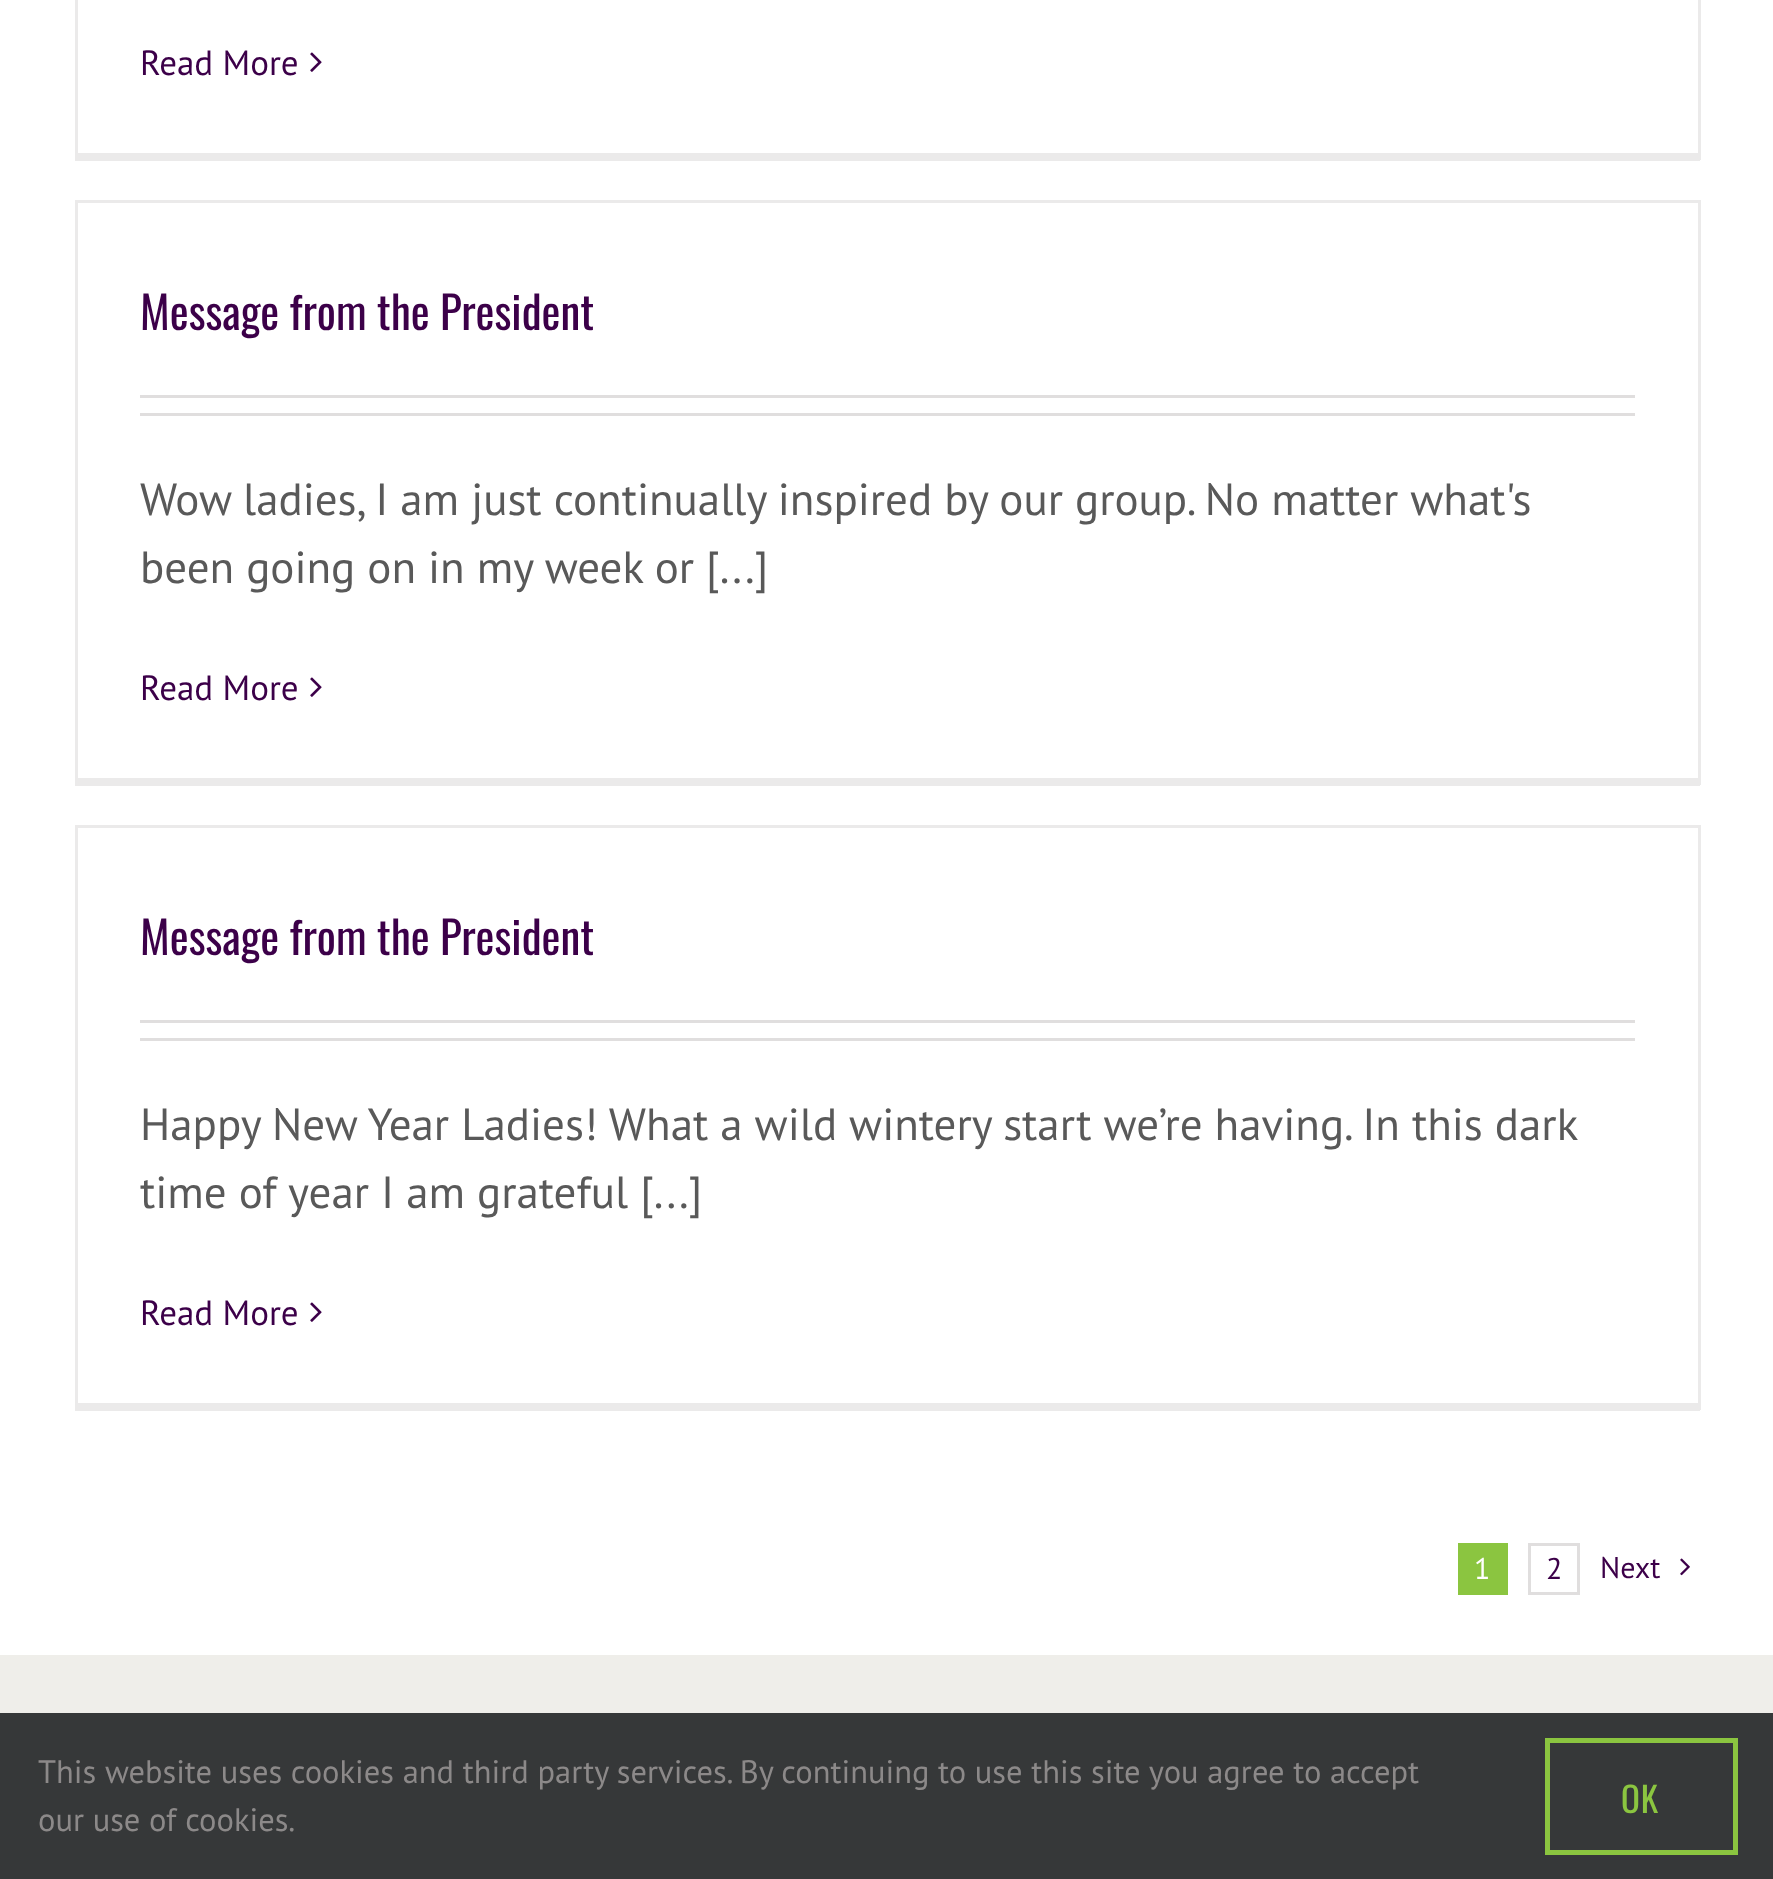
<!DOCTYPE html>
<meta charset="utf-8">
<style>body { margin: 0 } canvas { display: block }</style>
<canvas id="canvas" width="1773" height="1879"></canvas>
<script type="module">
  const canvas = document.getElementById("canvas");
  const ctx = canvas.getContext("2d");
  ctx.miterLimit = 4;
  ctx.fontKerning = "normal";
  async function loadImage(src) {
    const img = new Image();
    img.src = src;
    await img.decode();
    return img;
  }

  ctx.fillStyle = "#ffffff";
  ctx.fillRect(0, 0, 1773, 1879);
  ctx.fillStyle = "#ebeaea";
  ctx.fillRect(1698, 0, 3, 160);
  ctx.fillRect(75, 153, 1625, 8);
  ctx.fillRect(75, 0, 3, 160);
  ctx.font = "35px PT Sans";
  ctx.fillStyle = "#3c0049";
  ctx.fillText("Read More", 140, 75);
  ctx.drawImage(await loadImage("img1.png"), 310, 52, 12, 20);
  ctx.fillStyle = "#ebeaea";
  ctx.fillRect(75, 200, 1625, 3);
  ctx.fillRect(1698, 200, 3, 585);
  ctx.fillRect(75, 778, 1625, 8);
  ctx.fillRect(75, 200, 3, 585);
  ctx.font = "45px Oswald";
  ctx.fillStyle = "#3c0049";
  ctx.fillText("Message from the President", 140, 330);
  ctx.fillStyle = "#e0dede";
  ctx.fillRect(140, 395, 1495, 3);
  ctx.fillRect(140, 413, 1495, 3);
  ctx.font = "45px PT Sans";
  ctx.fillStyle = "#595959";
  ctx.fillText("Wow ladies, I am just continually inspired by our group. No matter what's", 140, 515);
  ctx.fillText("been going on in my week or [...]", 140, 583);
  ctx.font = "35px PT Sans";
  ctx.fillStyle = "#3c0049";
  ctx.fillText("Read More", 140, 700);
  ctx.drawImage(await loadImage("img1.png"), 310, 677, 12, 20);
  ctx.fillStyle = "#ebeaea";
  ctx.fillRect(75, 825, 1625, 3);
  ctx.fillRect(1698, 825, 3, 585);
  ctx.fillRect(75, 1403, 1625, 8);
  ctx.fillRect(75, 825, 3, 585);
  ctx.font = "45px Oswald";
  ctx.fillStyle = "#3c0049";
  ctx.fillText("Message from the President", 140, 955);
  ctx.fillStyle = "#e0dede";
  ctx.fillRect(140, 1020, 1495, 3);
  ctx.fillRect(140, 1038, 1495, 3);
  ctx.font = "45px PT Sans";
  ctx.fillStyle = "#595959";
  ctx.fillText("Happy New Year Ladies! What a wild wintery start we’re having. In this dark", 140, 1140);
  ctx.fillText("time of year I am grateful [...]", 140, 1208);
  ctx.font = "35px PT Sans";
  ctx.fillStyle = "#3c0049";
  ctx.fillText("Read More", 140, 1325);
  ctx.drawImage(await loadImage("img1.png"), 310, 1302, 12, 20);
  ctx.fillStyle = "#8bc540";
  ctx.fillRect(1458, 1543, 50, 52);
  ctx.font = "30px PT Sans";
  ctx.fillStyle = "#ffffff";
  ctx.fillText("1", 1474, 1579);
  ctx.strokeStyle = "#e0dede";
  ctx.lineWidth = 3;
  ctx.strokeRect(1529.5, 1544.5, 49, 49);
  ctx.fillStyle = "#3c0049";
  ctx.fillText("2", 1546, 1579);
  ctx.fillText("Next", 1600, 1578);
  ctx.drawImage(await loadImage("img2.png"), 1680, 1558, 10, 18);
  ctx.fillStyle = "#efeeea";
  ctx.fillRect(0, 1655, 1773, 58);
  ctx.fillStyle = "#363839";
  ctx.fillRect(0, 1713, 1773, 166);
  ctx.font = "32.5px PT Sans";
  ctx.fillStyle = "#8c8989";
  ctx.fillText("This website uses cookies and third party services. By continuing to use this site you agree to accept", 38, 1783);
  ctx.fillText("our use of cookies.", 38, 1831);
  ctx.strokeStyle = "#8bc540";
  ctx.lineWidth = 5;
  ctx.strokeRect(1547.5, 1740.5, 188, 112);
  ctx.letterSpacing = "1px";
  ctx.font = "35px Oswald";
  ctx.fillStyle = "#8bc540";
  ctx.fillText("OK", 1621, 1813);
</script>
